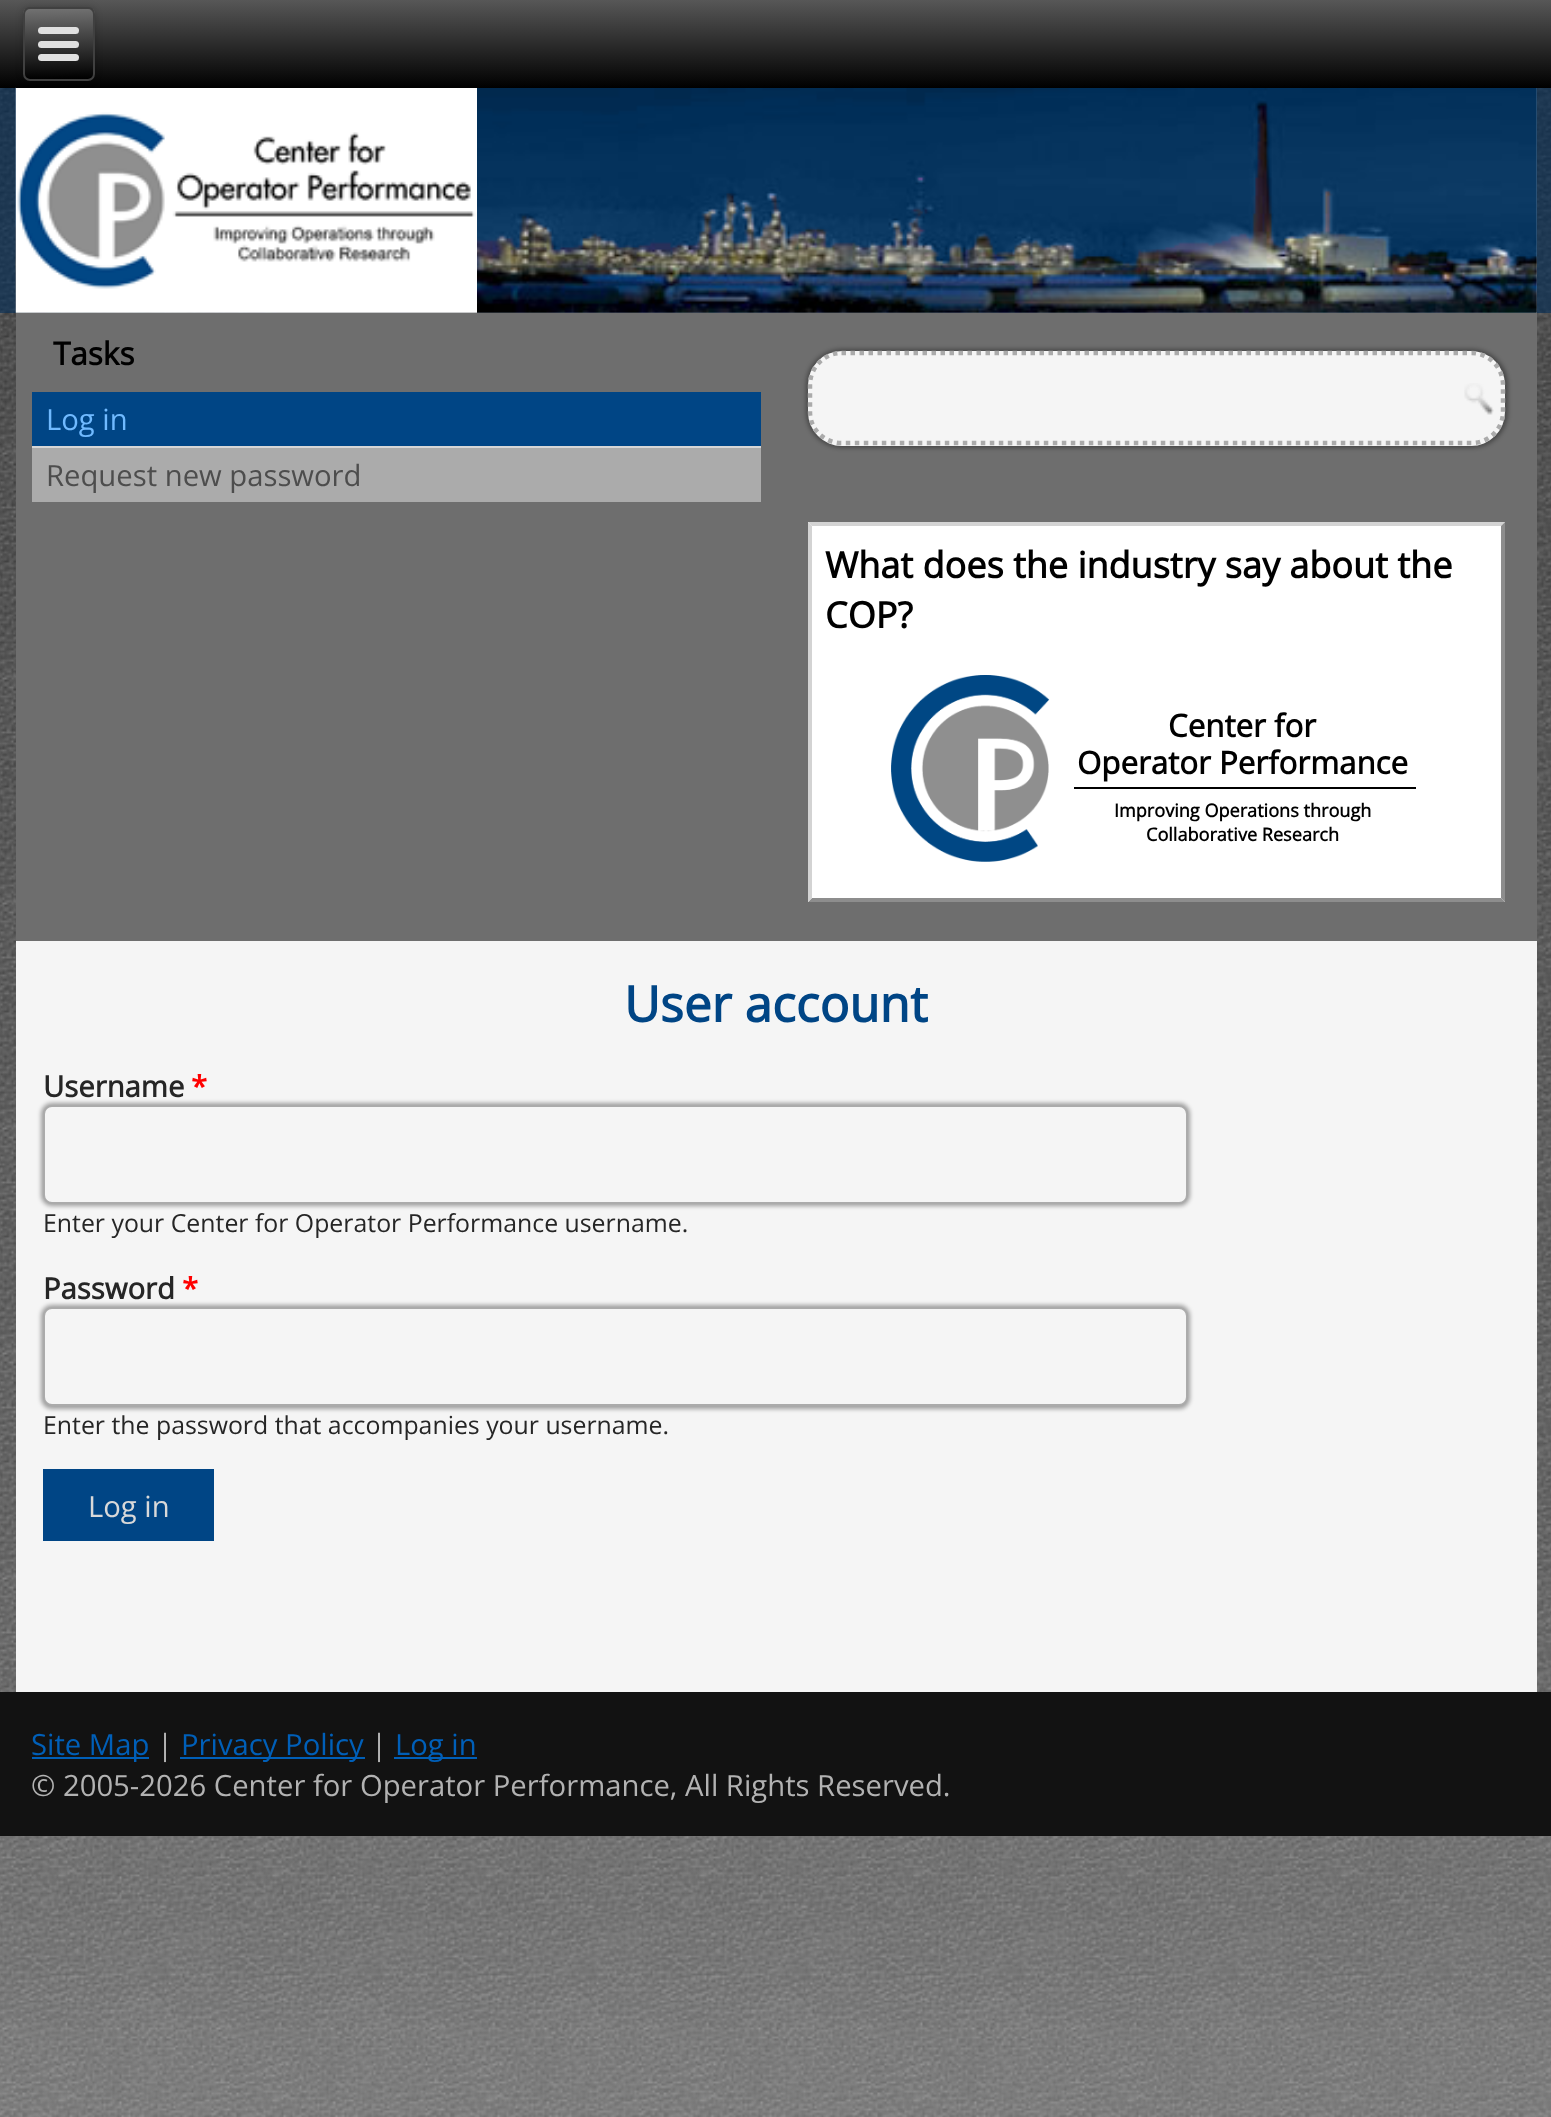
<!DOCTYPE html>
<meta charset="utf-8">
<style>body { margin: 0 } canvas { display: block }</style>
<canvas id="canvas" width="1551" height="2117"></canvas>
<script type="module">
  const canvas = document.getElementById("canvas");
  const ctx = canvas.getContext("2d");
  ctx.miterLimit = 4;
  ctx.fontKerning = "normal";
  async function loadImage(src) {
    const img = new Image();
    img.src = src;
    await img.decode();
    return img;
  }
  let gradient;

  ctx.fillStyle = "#ffffff";
  ctx.fillRect(0, 0, 1551, 2117);
  ctx.drawImage(await loadImage("img1.png"), 0, 88, 1551, 2029);
  gradient = ctx.createLinearGradient(776, 0, 776, 88);
  gradient.addColorStop(0, "#575757");
  gradient.addColorStop(1, "#000000");
  ctx.fillStyle = gradient;
  ctx.fillRect(0, 0, 1551, 88);
  ctx.fillStyle = "rgba(0, 43, 87, 0.6)";
  ctx.fillRect(0, 88, 1551, 225);
  ctx.fillStyle = "#f5f5f5";
  ctx.fillRect(16, 88, 1521, 1604);
  ctx.drawImage(await loadImage("img2.png"), 15, 87, 1522, 226);
  gradient = ctx.createLinearGradient(776, 0, 776, 88);
  gradient.addColorStop(0, "#575757");
  gradient.addColorStop(1, "#000000");
  ctx.fillStyle = gradient;
  ctx.fillRect(16, 87, 1521, 1);
  ctx.fillStyle = "rgba(0, 0, 0, 0.2)";
  ctx.filter = "blur(3.5px)";
  ctx.beginPath();
  ctx.roundRect(23, 7, 72, 74, 7);
  ctx.fill();
  ctx.filter = "none";
  ctx.save();
  ctx.beginPath();
  ctx.roundRect(23, 7, 72, 74, 7);
  ctx.clip();
  gradient = ctx.createLinearGradient(58, 9, 59, 79);
  gradient.addColorStop(0, "#707070");
  gradient.addColorStop(1, "#000000");
  ctx.fillStyle = gradient;
  ctx.fillRect(23, 9, 72, 70);
  ctx.restore();
  ctx.beginPath();
  ctx.roundRect(24, 8, 70, 72, 6);
  ctx.strokeStyle = "#404040";
  ctx.lineWidth = 2;
  ctx.stroke();
  ctx.fillStyle = "#e0e0e0";
  ctx.beginPath();
  ctx.roundRect(38, 27, 41, 7, 3.5);
  ctx.fill();
  ctx.beginPath();
  ctx.roundRect(38, 41, 41, 7, 3.5);
  ctx.fill();
  ctx.beginPath();
  ctx.roundRect(38, 54, 41, 7, 3.5);
  ctx.fill();
  ctx.fillStyle = "#6e6e6e";
  ctx.fillRect(16, 313, 1521, 628);
  ctx.font = "bold 31.5px Open Sans";
  ctx.fillStyle = "#000000";
  ctx.fillText("Tasks", 53, 365);
  ctx.fillStyle = "#004585";
  ctx.fillRect(32, 392, 729, 54);
  ctx.font = "29.25px Open Sans";
  ctx.fillStyle = "#70baff";
  ctx.fillText("Log in", 46, 430);
  ctx.fillStyle = "#d6d6d6";
  ctx.fillRect(32, 446, 729, 2);
  ctx.fillStyle = "#ababab";
  ctx.fillRect(32, 448, 729, 54);
  ctx.fillStyle = "#4d4d4d";
  ctx.fillText("Request new password", 46, 486);
  ctx.fillStyle = "rgba(0, 0, 0, 0.35)";
  ctx.filter = "blur(2px)";
  ctx.beginPath();
  ctx.roundRect(806, 349, 702, 99, 36);
  ctx.fill();
  ctx.filter = "none";
  ctx.fillStyle = "#f5f5f5";
  ctx.beginPath();
  ctx.roundRect(808, 351, 697, 95, 34);
  ctx.fill();
  ctx.beginPath();
  ctx.moveTo(841.5, 353);
  ctx.lineTo(1471.5, 353);
  ctx.bezierCurveTo(1489, 353, 1503, 367.5, 1503, 385);
  ctx.lineTo(1503, 412);
  ctx.bezierCurveTo(1503, 429, 1489, 443, 1471.5, 443);
  ctx.lineTo(841.5, 443);
  ctx.bezierCurveTo(824, 443, 810, 429, 810, 412);
  ctx.lineTo(810, 385);
  ctx.bezierCurveTo(810, 367.5, 824, 353, 841.5, 353);
  ctx.closePath();
  ctx.strokeStyle = "#ababab";
  ctx.lineWidth = 4.5;
  ctx.setLineDash([4.5, 4.5]);
  ctx.stroke();
  ctx.drawImage(await loadImage("img3.png"), 1464, 383, 30, 32);
  ctx.fillStyle = "#ffffff";
  ctx.fillRect(808, 522, 697, 380);
  ctx.fillStyle = "#d3d3d3";
  ctx.beginPath();
  ctx.moveTo(808, 522);
  ctx.lineTo(1505, 522);
  ctx.lineTo(1501, 526);
  ctx.lineTo(812, 526);
  ctx.closePath();
  ctx.fill();
  ctx.fillStyle = "#8d8d8d";
  ctx.beginPath();
  ctx.moveTo(1505, 522);
  ctx.lineTo(1505, 902);
  ctx.lineTo(1501, 898);
  ctx.lineTo(1501, 526);
  ctx.closePath();
  ctx.fill();
  ctx.beginPath();
  ctx.moveTo(1505, 902);
  ctx.lineTo(808, 902);
  ctx.lineTo(812, 898);
  ctx.lineTo(1501, 898);
  ctx.closePath();
  ctx.fill();
  ctx.fillStyle = "#d3d3d3";
  ctx.beginPath();
  ctx.moveTo(808, 902);
  ctx.lineTo(808, 522);
  ctx.lineTo(812, 526);
  ctx.lineTo(812, 898);
  ctx.closePath();
  ctx.fill();
  ctx.font = "bold 36px Open Sans";
  ctx.fillStyle = "#000000";
  ctx.fillText("What does the industry say about the", 825, 578);
  ctx.fillText("COP?", 825, 628);
  ctx.drawImage(await loadImage("img4.png"), 891, 675, 159, 187);
  ctx.fillRect(1074, 787, 342, 2);
  ctx.font = "bold 31.25px Open Sans";
  ctx.fillText("Center for", 1168, 737);
  ctx.fillText("Operator Performance", 1077, 774);
  ctx.font = "bold 18.1px Open Sans";
  ctx.fillText("Improving Operations through", 1114, 817);
  ctx.fillText("Collaborative Research", 1146, 841);
  ctx.font = "bold 49.5px Open Sans";
  ctx.fillStyle = "#004585";
  ctx.fillText("User account", 624, 1022);
  ctx.font = "bold 29.25px Open Sans";
  ctx.fillStyle = "#262626";
  ctx.fillText("Username", 43, 1097);
  ctx.fillStyle = "#ff0000";
  ctx.fillText("*", 191, 1097);
  ctx.fillStyle = "rgba(0, 0, 0, 0.35)";
  ctx.filter = "blur(2px)";
  ctx.beginPath();
  ctx.roundRect(41, 1103, 1149, 103, 11);
  ctx.fill();
  ctx.filter = "none";
  ctx.fillStyle = "#f5f5f5";
  ctx.beginPath();
  ctx.roundRect(44, 1106, 1143, 97, 8);
  ctx.fill();
  ctx.lineWidth = 2;
  ctx.setLineDash([]);
  ctx.stroke();
  ctx.font = "24.85px Open Sans";
  ctx.fillStyle = "#262626";
  ctx.fillText("Enter your Center for Operator Performance username.", 43, 1232);
  ctx.font = "bold 29.25px Open Sans";
  ctx.fillText("Password", 43, 1299);
  ctx.fillStyle = "#ff0000";
  ctx.fillText("*", 182, 1299);
  ctx.fillStyle = "rgba(0, 0, 0, 0.35)";
  ctx.filter = "blur(2px)";
  ctx.beginPath();
  ctx.roundRect(41, 1305, 1149, 104, 11);
  ctx.fill();
  ctx.filter = "none";
  ctx.fillStyle = "#f5f5f5";
  ctx.beginPath();
  ctx.roundRect(44, 1308, 1143, 97, 8);
  ctx.fill();
  ctx.stroke();
  ctx.font = "24.85px Open Sans";
  ctx.fillStyle = "#262626";
  ctx.fillText("Enter the password that accompanies your username.", 43, 1434);
  ctx.fillStyle = "#004585";
  ctx.fillRect(43, 1469, 171, 72);
  ctx.font = "29.25px Open Sans";
  ctx.fillStyle = "#d9d9d9";
  ctx.fillText("Log in", 88, 1517);
  ctx.fillStyle = "#121212";
  ctx.fillRect(0, 1692, 1551, 144);
  ctx.fillStyle = "#005fb8";
  ctx.fillRect(32, 1757, 117, 2);
  ctx.fillText("Site Map", 31, 1755);
  ctx.fillStyle = "#b2b2b2";
  ctx.fillText("|", 157, 1755);
  ctx.fillStyle = "#005fb8";
  ctx.fillRect(180, 1757, 185, 2);
  ctx.fillText("Privacy Policy", 181, 1755);
  ctx.fillStyle = "#b2b2b2";
  ctx.fillText("|", 371, 1755);
  ctx.fillStyle = "#005fb8";
  ctx.fillRect(394, 1757, 83, 2);
  ctx.fillText("Log in", 395, 1755);
  ctx.fillStyle = "#b2b2b2";
  ctx.fillText("© 2005-2026 Center for Operator Performance, All Rights Reserved.", 31, 1796);
</script>
